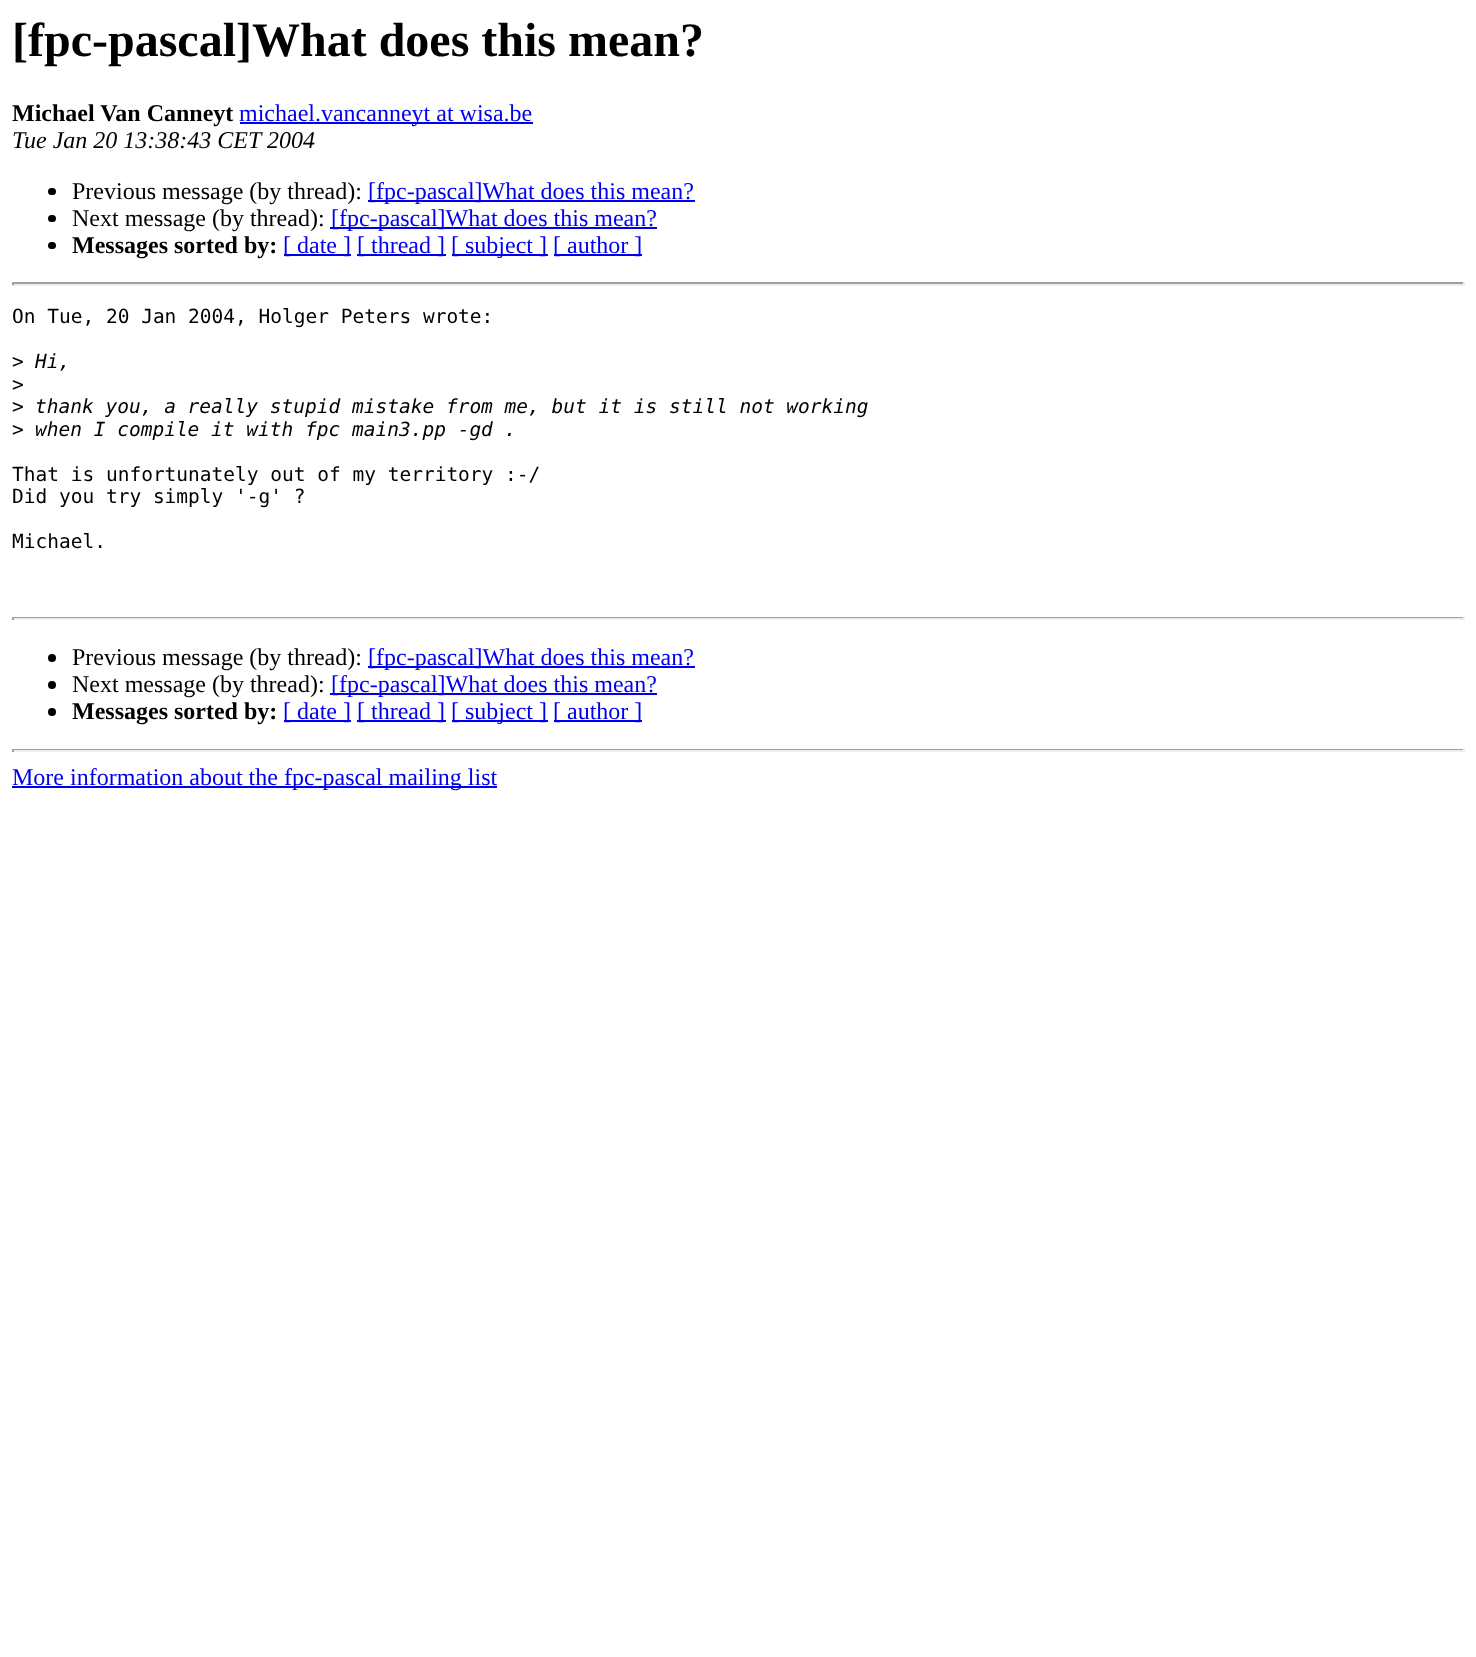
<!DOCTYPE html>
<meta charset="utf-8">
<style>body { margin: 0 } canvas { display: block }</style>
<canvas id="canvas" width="1476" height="1657"></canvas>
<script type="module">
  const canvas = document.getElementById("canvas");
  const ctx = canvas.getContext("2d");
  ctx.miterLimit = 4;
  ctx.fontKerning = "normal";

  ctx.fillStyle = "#ffffff";
  ctx.fillRect(0, 0, 1476, 1657);
  ctx.font = "bold 48px Liberation Serif";
  ctx.fillStyle = "#000000";
  ctx.fillText("[fpc-pascal]What does this mean?", 12, 56);
  ctx.font = "bold 24px Liberation Serif";
  ctx.fillText("Michael Van Canneyt", 12, 121);
  ctx.fillStyle = "#0000ee";
  ctx.fillRect(240, 122, 293, 2);
  ctx.font = "24px Liberation Serif";
  ctx.fillText("michael.vancanneyt at wisa.be", 239, 121);
  ctx.font = "italic 24px Liberation Serif";
  ctx.fillStyle = "#000000";
  ctx.fillText("Tue Jan 20 13:38:43 CET 2004", 12, 148);
  ctx.beginPath();
  ctx.roundRect(48, 188, 8, 7, 3.5);
  ctx.fill();
  ctx.font = "24px Liberation Serif";
  ctx.fillText("Previous message (by thread):", 72, 199);
  ctx.fillStyle = "#0000ee";
  ctx.fillRect(368, 200, 327, 2);
  ctx.fillText("[fpc-pascal]What does this mean?", 368, 199);
  ctx.fillStyle = "#000000";
  ctx.beginPath();
  ctx.roundRect(48, 215, 8, 7, 3.5);
  ctx.fill();
  ctx.fillText("Next message (by thread):", 72, 226);
  ctx.fillStyle = "#0000ee";
  ctx.fillRect(330, 227, 327, 2);
  ctx.fillText("[fpc-pascal]What does this mean?", 331, 226);
  ctx.fillStyle = "#000000";
  ctx.beginPath();
  ctx.roundRect(48, 242, 8, 7, 3.5);
  ctx.fill();
  ctx.font = "bold 24px Liberation Serif";
  ctx.fillText("Messages sorted by:", 72, 253);
  ctx.fillStyle = "#0000ee";
  ctx.fillRect(284, 254, 67, 2);
  ctx.font = "24px Liberation Serif";
  ctx.fillText("[ date ]", 283, 253);
  ctx.fillRect(357, 254, 89, 2);
  ctx.fillText("[ thread ]", 357, 253);
  ctx.fillRect(452, 254, 96, 2);
  ctx.fillText("[ subject ]", 451, 253);
  ctx.fillRect(554, 254, 88, 2);
  ctx.fillText("[ author ]", 553, 253);
  ctx.fillStyle = "#9f9f9f";
  ctx.fillRect(12, 282, 1452, 2);
  ctx.fillStyle = "#eeeeee";
  ctx.fillRect(1463, 282, 2, 3);
  ctx.fillRect(12, 284, 1452, 2);
  ctx.fillStyle = "#9f9f9f";
  ctx.fillRect(12, 282, 2, 3);
  ctx.font = "19.5px DejaVu Sans Mono";
  ctx.fillStyle = "#000000";
  ctx.fillText("On Tue, 20 Jan 2004, Holger Peters wrote:", 12, 323);
  ctx.fillText(">", 12, 368);
  ctx.font = "italic 19.5px DejaVu Sans Mono";
  ctx.fillText("Hi,", 35, 368);
  ctx.font = "19.5px DejaVu Sans Mono";
  ctx.fillText(">", 12, 391);
  ctx.fillText(">", 12, 413);
  ctx.font = "italic 19.5px DejaVu Sans Mono";
  ctx.fillText("thank you, a really stupid mistake from me, but it is still not working", 35, 413);
  ctx.font = "19.5px DejaVu Sans Mono";
  ctx.fillText(">", 12, 436);
  ctx.font = "italic 19.5px DejaVu Sans Mono";
  ctx.fillText("when I compile it with fpc main3.pp -gd .", 35, 436);
  ctx.font = "19.5px DejaVu Sans Mono";
  ctx.fillText("That is unfortunately out of my territory :-/", 12, 481);
  ctx.fillText("Did you try simply '-g' ?", 12, 503);
  ctx.fillText("Michael.", 12, 548);
  ctx.fillStyle = "#9f9f9f";
  ctx.fillRect(12, 617, 1452, 1);
  ctx.fillStyle = "#eeeeee";
  ctx.fillRect(1463, 617, 2, 3);
  ctx.fillRect(12, 618, 1452, 2);
  ctx.fillStyle = "#9f9f9f";
  ctx.fillRect(12, 617, 2, 3);
  ctx.fillStyle = "#000000";
  ctx.beginPath();
  ctx.arc(52, 658, 4, 0, Math.PI * 2);
  ctx.fill();
  ctx.font = "24px Liberation Serif";
  ctx.fillText("Previous message (by thread):", 72, 665);
  ctx.fillStyle = "#0000ee";
  ctx.fillRect(368, 666, 327, 2);
  ctx.fillText("[fpc-pascal]What does this mean?", 368, 665);
  ctx.fillStyle = "#000000";
  ctx.beginPath();
  ctx.arc(52, 685, 4, 0, Math.PI * 2);
  ctx.fill();
  ctx.fillText("Next message (by thread):", 72, 692);
  ctx.fillStyle = "#0000ee";
  ctx.fillRect(330, 693, 327, 2);
  ctx.fillText("[fpc-pascal]What does this mean?", 331, 692);
  ctx.fillStyle = "#000000";
  ctx.beginPath();
  ctx.arc(52, 712, 4, 0, Math.PI * 2);
  ctx.fill();
  ctx.font = "bold 24px Liberation Serif";
  ctx.fillText("Messages sorted by:", 72, 719);
  ctx.fillStyle = "#0000ee";
  ctx.fillRect(284, 720, 67, 2);
  ctx.font = "24px Liberation Serif";
  ctx.fillText("[ date ]", 283, 719);
  ctx.fillRect(357, 720, 89, 2);
  ctx.fillText("[ thread ]", 357, 719);
  ctx.fillRect(452, 720, 96, 2);
  ctx.fillText("[ subject ]", 451, 719);
  ctx.fillRect(554, 720, 88, 2);
  ctx.fillText("[ author ]", 553, 719);
  ctx.fillStyle = "#9f9f9f";
  ctx.fillRect(12, 749, 1452, 1);
  ctx.fillStyle = "#eeeeee";
  ctx.fillRect(1463, 749, 2, 3);
  ctx.fillRect(12, 750, 1452, 2);
  ctx.fillStyle = "#9f9f9f";
  ctx.fillRect(12, 749, 2, 3);
  ctx.fillStyle = "#0000ee";
  ctx.fillRect(12, 786, 485, 2);
  ctx.fillText("More information about the fpc-pascal mailing list", 12, 785);
</script>
